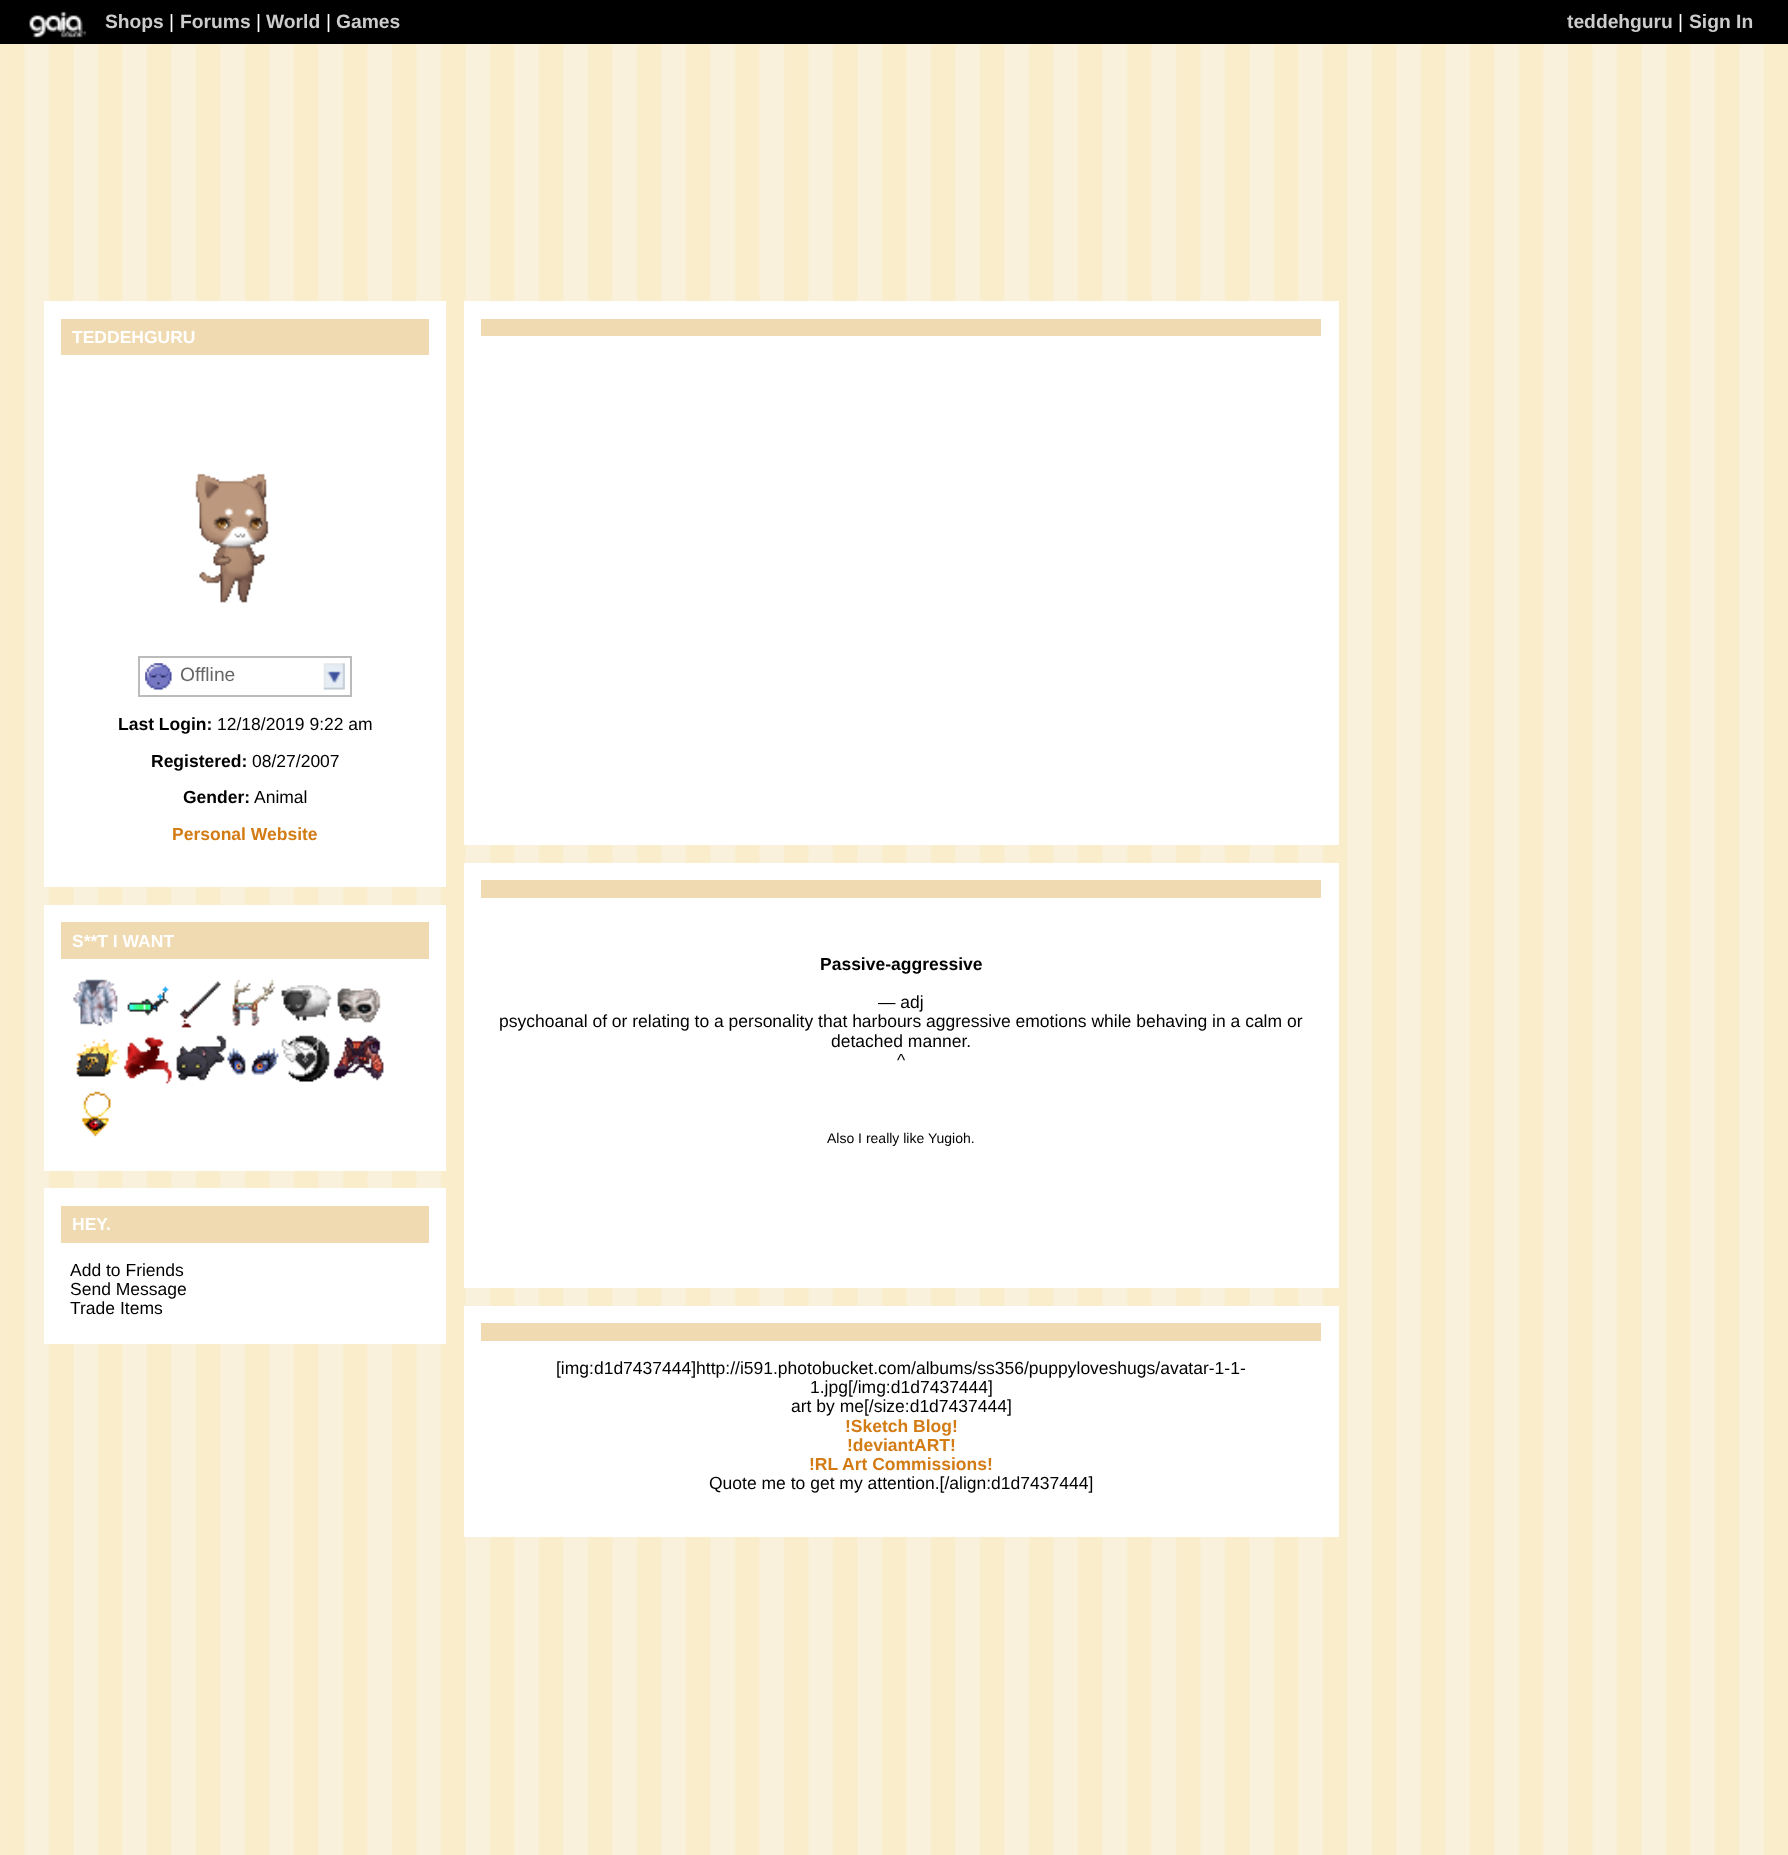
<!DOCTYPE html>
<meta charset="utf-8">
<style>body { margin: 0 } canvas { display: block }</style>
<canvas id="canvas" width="1788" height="1855"></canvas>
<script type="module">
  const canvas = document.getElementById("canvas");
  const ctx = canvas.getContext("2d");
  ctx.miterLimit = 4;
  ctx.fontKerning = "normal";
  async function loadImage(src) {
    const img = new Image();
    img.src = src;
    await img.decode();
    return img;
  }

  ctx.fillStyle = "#ffffff";
  ctx.fillRect(0, 0, 1788, 1855);
  ctx.drawImage(await loadImage("img1.png"), 0, 44, 1788, 1811);
  ctx.fillStyle = "#000000";
  ctx.fillRect(0, 0, 1788, 44);
  ctx.drawImage(await loadImage("img2.png"), 29, 11, 58, 27);
  ctx.font = "bold 19.25px Liberation Sans";
  ctx.fillStyle = "#cccccc";
  ctx.fillText("Shops", 105, 28);
  ctx.font = "19.25px Liberation Sans";
  ctx.fillStyle = "#ffffff";
  ctx.fillText("|", 169, 28);
  ctx.font = "bold 19.25px Liberation Sans";
  ctx.fillStyle = "#cccccc";
  ctx.fillText("Forums", 180, 28);
  ctx.font = "19.25px Liberation Sans";
  ctx.fillStyle = "#ffffff";
  ctx.fillText("|", 256, 28);
  ctx.font = "bold 19.25px Liberation Sans";
  ctx.fillStyle = "#cccccc";
  ctx.fillText("World", 266, 28);
  ctx.font = "19.25px Liberation Sans";
  ctx.fillStyle = "#ffffff";
  ctx.fillText("|", 326, 28);
  ctx.font = "bold 19.25px Liberation Sans";
  ctx.fillStyle = "#cccccc";
  ctx.fillText("Games", 336, 28);
  ctx.fillText("teddehguru", 1567, 28);
  ctx.font = "19.25px Liberation Sans";
  ctx.fillStyle = "#ffffff";
  ctx.fillText("|", 1678, 28);
  ctx.font = "bold 19.25px Liberation Sans";
  ctx.fillStyle = "#cccccc";
  ctx.fillText("Sign In", 1689, 28);
  ctx.fillStyle = "#ffffff";
  ctx.fillRect(44, 301, 402, 586);
  ctx.fillStyle = "#f0dab1";
  ctx.fillRect(61, 319, 368, 36);
  ctx.font = "bold 17.5px Liberation Sans";
  ctx.fillStyle = "#ffffff";
  ctx.fillText("TEDDEHGURU", 72, 343);
  ctx.drawImage(await loadImage("img3.png"), 195, 473, 74, 130);
  ctx.strokeStyle = "#bbbbbb";
  ctx.lineWidth = 2;
  ctx.strokeRect(139, 657, 212, 39);
  ctx.drawImage(await loadImage("img4.png"), 323, 663, 22, 27);
  ctx.drawImage(await loadImage("img5.png"), 145, 663, 27, 27);
  ctx.font = "19.25px Liberation Sans";
  ctx.fillStyle = "#666666";
  ctx.fillText("Offline", 180, 681);
  ctx.font = "bold 17.5px Liberation Sans";
  ctx.fillStyle = "#000000";
  ctx.fillText("Last Login:", 118, 730);
  ctx.font = "17.5px Liberation Sans";
  ctx.fillText("12/18/2019 9:22 am", 217, 730);
  ctx.font = "bold 17.5px Liberation Sans";
  ctx.fillText("Registered:", 151, 767);
  ctx.font = "17.5px Liberation Sans";
  ctx.fillText("08/27/2007", 252, 767);
  ctx.font = "bold 17.5px Liberation Sans";
  ctx.fillText("Gender:", 183, 803);
  ctx.font = "17.5px Liberation Sans";
  ctx.fillText("Animal", 254, 803);
  ctx.font = "bold 17.5px Liberation Sans";
  ctx.fillStyle = "#d37b14";
  ctx.fillText("Personal Website", 172, 840);
  ctx.fillStyle = "#ffffff";
  ctx.fillRect(44, 905, 402, 266);
  ctx.fillStyle = "#f0dab1";
  ctx.fillRect(61, 922, 368, 37);
  ctx.fillStyle = "#ffffff";
  ctx.fillText("S**T I WANT", 72, 947);
  ctx.drawImage(await loadImage("img6.png"), 73, 979, 45, 47);
  ctx.drawImage(await loadImage("img7.png"), 127, 986, 42, 30);
  ctx.drawImage(await loadImage("img8.png"), 179, 981, 42, 47);
  ctx.drawImage(await loadImage("img9.png"), 232, 979, 44, 47);
  ctx.drawImage(await loadImage("img10.png"), 281, 985, 51, 36);
  ctx.drawImage(await loadImage("img11.png"), 337, 988, 44, 35);
  ctx.drawImage(await loadImage("img12.png"), 76, 1039, 44, 38);
  ctx.drawImage(await loadImage("img13.png"), 123, 1037, 49, 47);
  ctx.drawImage(await loadImage("img14.png"), 176, 1035, 51, 46);
  ctx.drawImage(await loadImage("img15.png"), 227, 1047, 52, 28);
  ctx.drawImage(await loadImage("img16.png"), 281, 1035, 49, 47);
  ctx.drawImage(await loadImage("img17.png"), 333, 1035, 51, 46);
  ctx.drawImage(await loadImage("img18.png"), 81, 1091, 30, 46);
  ctx.fillRect(44, 1188, 402, 156);
  ctx.fillStyle = "#f0dab1";
  ctx.fillRect(61, 1206, 368, 37);
  ctx.fillStyle = "#ffffff";
  ctx.fillText("HEY.", 72, 1230);
  ctx.font = "17.5px Liberation Sans";
  ctx.fillStyle = "#000000";
  ctx.fillText("Add to Friends", 70, 1276);
  ctx.fillText("Send Message", 70, 1295);
  ctx.fillText("Trade Items", 70, 1314);
  ctx.fillStyle = "#ffffff";
  ctx.fillRect(464, 301, 875, 544);
  ctx.fillStyle = "#f0dab1";
  ctx.fillRect(481, 319, 840, 17);
  ctx.fillStyle = "#ffffff";
  ctx.fillRect(464, 863, 875, 425);
  ctx.fillStyle = "#f0dab1";
  ctx.fillRect(481, 880, 840, 18);
  ctx.font = "bold 17.5px Liberation Sans";
  ctx.fillStyle = "#000000";
  ctx.fillText("Passive-aggressive", 820, 970);
  ctx.font = "17.5px Liberation Sans";
  ctx.fillText("— adj", 878, 1008);
  ctx.fillText("psychoanal of or relating to a personality that harbours aggressive emotions while behaving in a calm or", 499, 1027);
  ctx.fillText("detached manner.", 831, 1047);
  ctx.fillText("^", 897, 1066);
  ctx.font = "14px Liberation Sans";
  ctx.fillText("Also I really like Yugioh.", 827, 1143);
  ctx.fillStyle = "#ffffff";
  ctx.fillRect(464, 1306, 875, 231);
  ctx.fillStyle = "#f0dab1";
  ctx.fillRect(481, 1323, 840, 18);
  ctx.font = "17.5px Liberation Sans";
  ctx.fillStyle = "#000000";
  ctx.fillText("[img:d1d7437444]http://i591.photobucket.com/albums/ss356/puppyloveshugs/avatar-1-1-", 556, 1374);
  ctx.fillText("1.jpg[/img:d1d7437444]", 810, 1393);
  ctx.fillText("art by me[/size:d1d7437444]", 791, 1412);
  ctx.font = "bold 17.5px Liberation Sans";
  ctx.fillStyle = "#d37b14";
  ctx.fillText("!Sketch Blog!", 845, 1432);
  ctx.fillText("!deviantART!", 847, 1451);
  ctx.fillText("!RL Art Commissions!", 809, 1470);
  ctx.font = "17.5px Liberation Sans";
  ctx.fillStyle = "#000000";
  ctx.fillText("Quote me to get my attention.[/align:d1d7437444]", 709, 1489);
</script>
